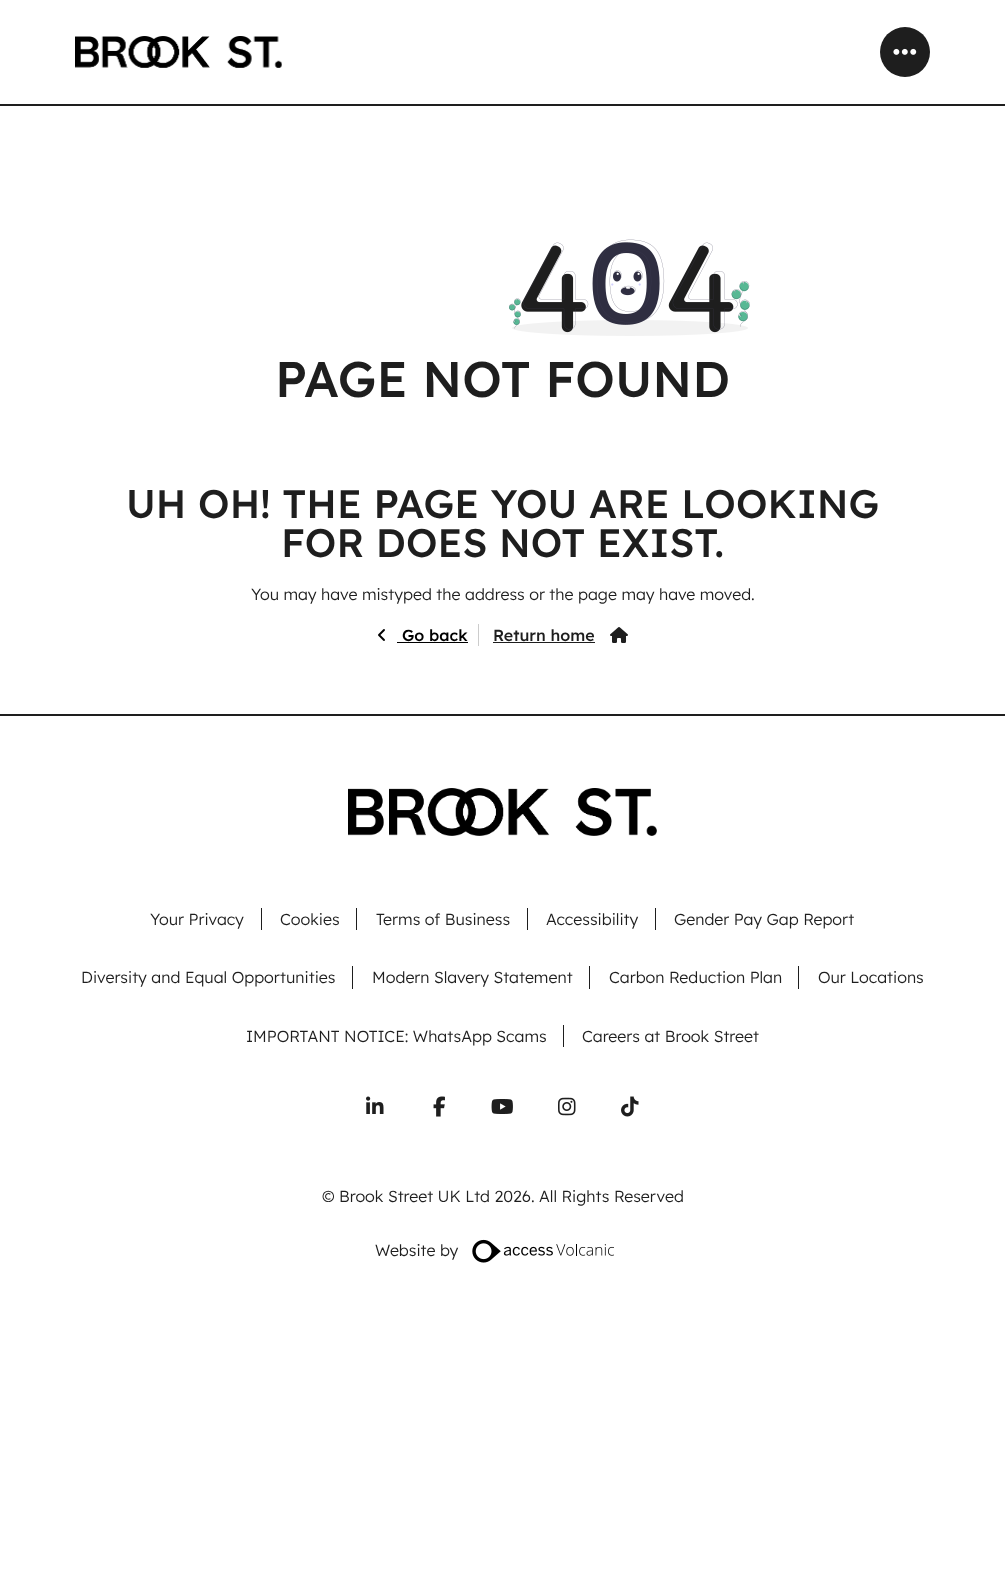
<!DOCTYPE html>
<meta charset="utf-8">
<style>body { margin: 0 } canvas { display: block }</style>
<canvas id="canvas" width="1005" height="1596"></canvas>
<script type="module">
  const canvas = document.getElementById("canvas");
  const ctx = canvas.getContext("2d");
  ctx.miterLimit = 4;
  ctx.fontKerning = "normal";
  async function loadImage(src) {
    const img = new Image();
    img.src = src;
    await img.decode();
    return img;
  }

  ctx.fillStyle = "#ffffff";
  ctx.fillRect(0, 0, 1005, 1596);
  ctx.fillStyle = "#1e1e1e";
  ctx.fillRect(0, 104, 1005, 2);
  ctx.drawImage(await loadImage("img1.png"), 75, 36, 207, 32);
  ctx.beginPath();
  ctx.arc(905, 52, 25, 0, Math.PI * 2);
  ctx.fill();
  ctx.drawImage(await loadImage("img2.png"), 893, 48, 24, 7);
  ctx.drawImage(await loadImage("img3.png"), 509, 239, 241, 97);
  ctx.font = "500 50px Lexend";
  ctx.fillText("PAGE NOT FOUND", 275, 397);
  ctx.font = "500 39.8px Lexend";
  ctx.fillText("UH OH! THE PAGE YOU ARE LOOKING", 126, 518);
  ctx.fillText("FOR DOES NOT EXIST.", 281, 557);
  ctx.font = "300 16px Lexend";
  ctx.fillText("You may have mistyped the address or the page may have moved.", 251, 600);
  ctx.fillStyle = "#cccccc";
  ctx.fillRect(478, 624, 1, 22);
  ctx.drawImage(await loadImage("img4.png"), 378, 629, 7, 12);
  ctx.font = "500 16px Lexend";
  ctx.fillStyle = "#000000";
  ctx.fillText("Go back", 402, 641);
  ctx.fillRect(397, 642, 71, 1);
  ctx.fillStyle = "#1e1e1e";
  ctx.fillText("Return home", 493, 641);
  ctx.fillRect(493, 642, 102, 1);
  ctx.drawImage(await loadImage("img5.png"), 610, 627, 18, 16);
  ctx.fillRect(0, 714, 1005, 2);
  ctx.drawImage(await loadImage("img6.png"), 348, 788, 309, 48);
  ctx.font = "300 16px Lexend";
  ctx.fillText("Your Privacy", 150, 925);
  ctx.fillRect(261, 908, 1, 22);
  ctx.fillText("Cookies", 280, 925);
  ctx.fillRect(356, 908, 1, 22);
  ctx.fillText("Terms of Business", 376, 925);
  ctx.fillRect(527, 908, 1, 22);
  ctx.fillText("Accessibility", 546, 925);
  ctx.fillRect(655, 908, 1, 22);
  ctx.fillText("Gender Pay Gap Report", 674, 925);
  ctx.fillText("Diversity and Equal Opportunities", 81, 983);
  ctx.fillRect(352, 966, 1, 23);
  ctx.fillText("Modern Slavery Statement", 372, 983);
  ctx.fillRect(589, 966, 1, 23);
  ctx.fillText("Carbon Reduction Plan", 609, 983);
  ctx.fillRect(798, 966, 1, 23);
  ctx.fillText("Our Locations", 818, 983);
  ctx.fillText("IMPORTANT NOTICE: WhatsApp Scams", 246, 1042);
  ctx.fillRect(563, 1025, 1, 22);
  ctx.fillText("Careers at Brook Street", 582, 1042);
  ctx.drawImage(await loadImage("img7.png"), 366, 1096, 18, 18);
  ctx.drawImage(await loadImage("img8.png"), 433, 1096, 12, 21);
  ctx.drawImage(await loadImage("img9.png"), 491, 1099, 22, 15);
  ctx.drawImage(await loadImage("img10.png"), 558, 1097, 18, 19);
  ctx.drawImage(await loadImage("img11.png"), 621, 1096, 18, 21);
  ctx.fillText("© Brook Street UK Ltd 2026. All Rights Reserved", 322, 1202);
  ctx.fillText("Website by", 375, 1256);
  ctx.drawImage(await loadImage("img12.png"), 472, 1239, 142, 24);
</script>
